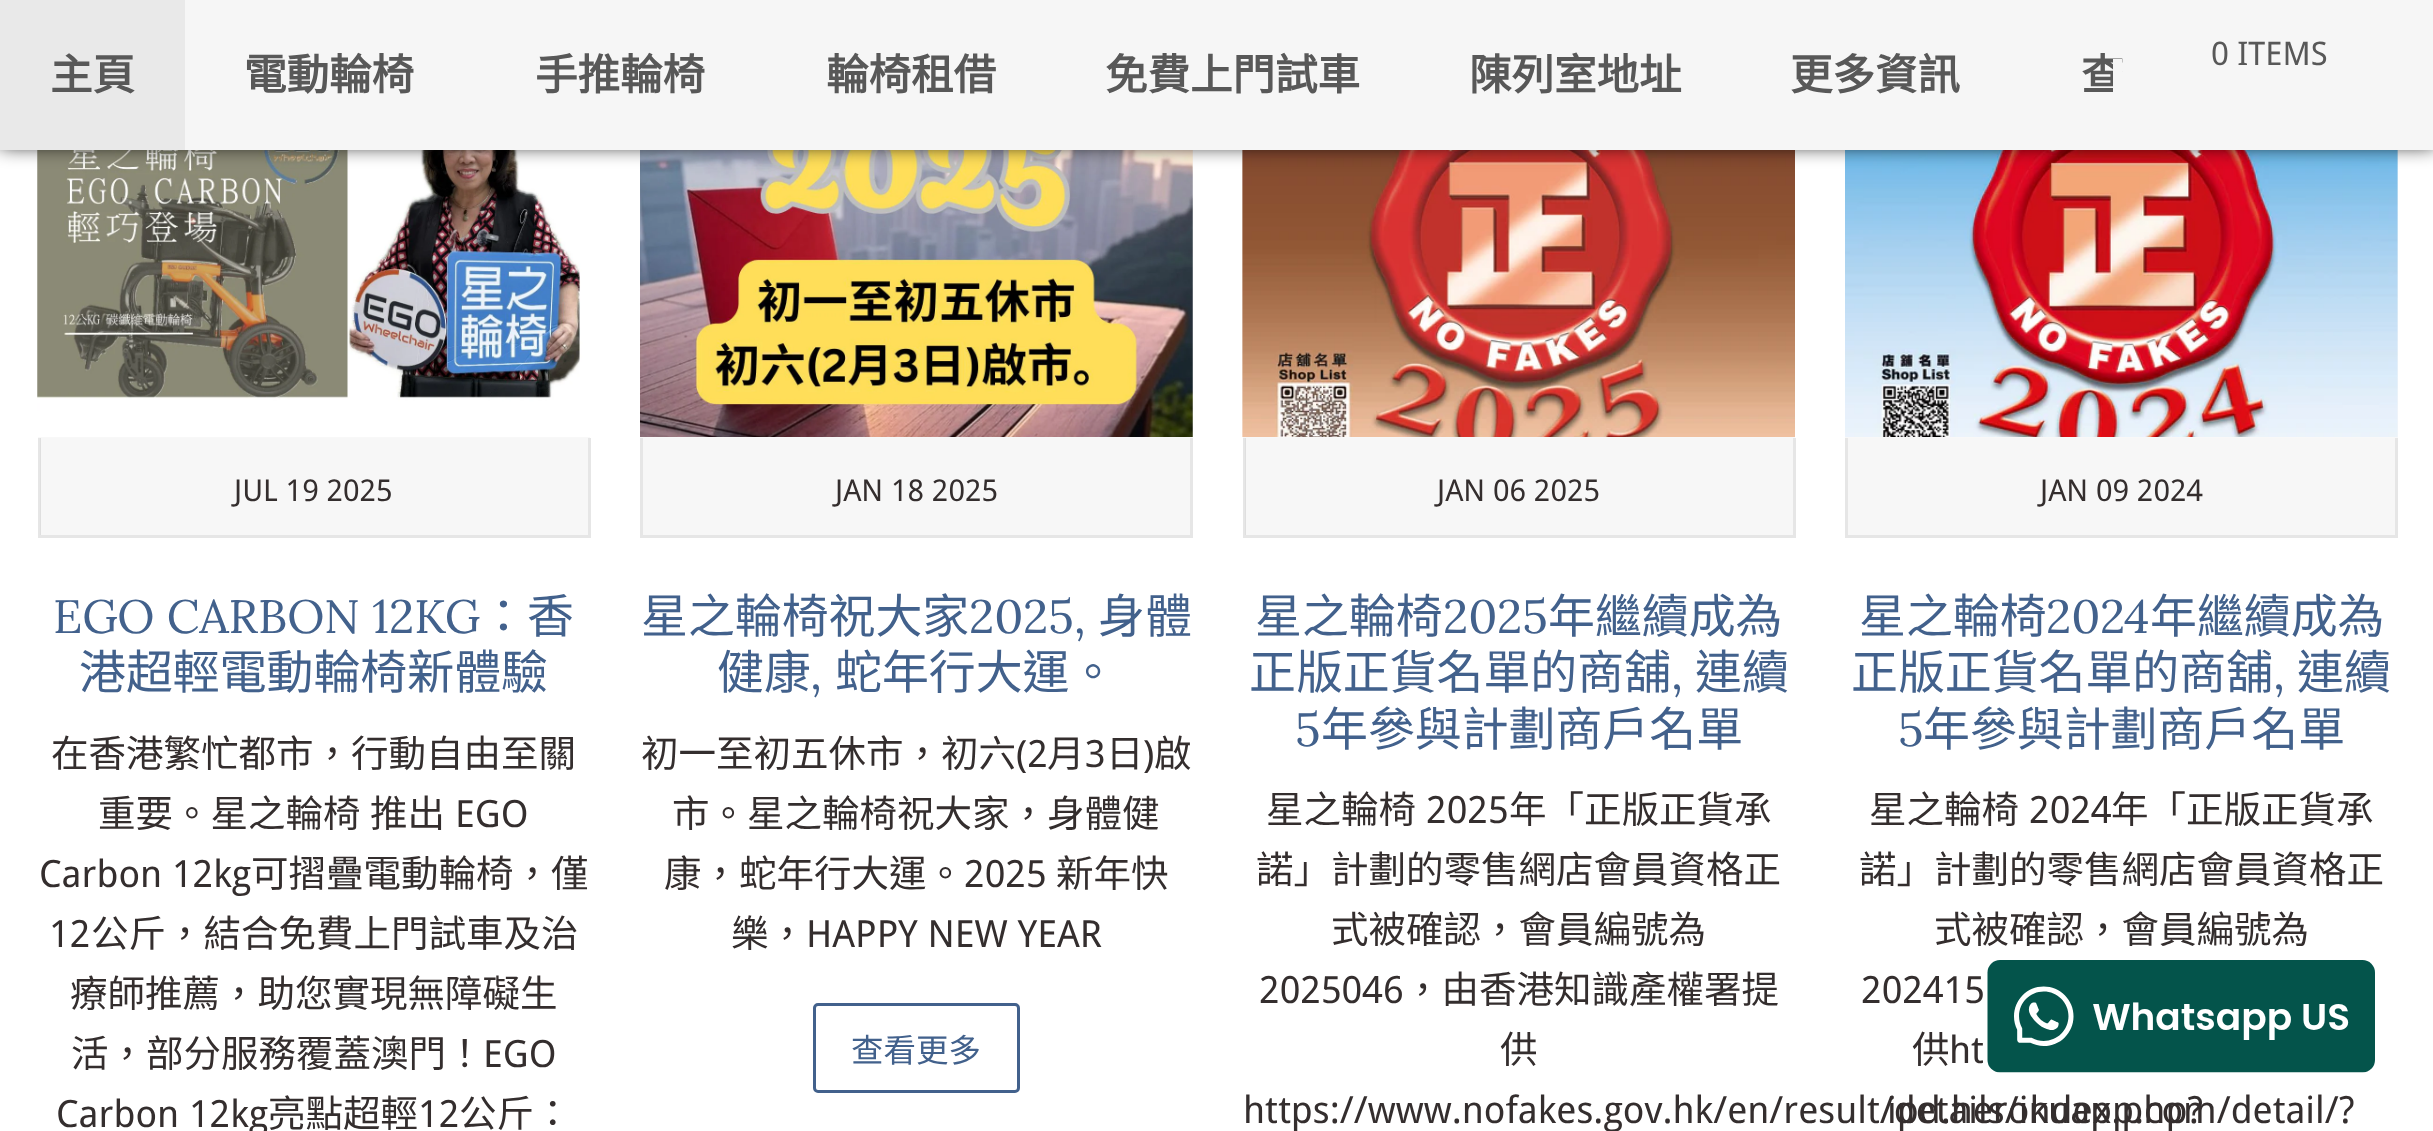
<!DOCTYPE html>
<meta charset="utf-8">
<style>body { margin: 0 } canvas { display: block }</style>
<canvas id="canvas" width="2433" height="1131"></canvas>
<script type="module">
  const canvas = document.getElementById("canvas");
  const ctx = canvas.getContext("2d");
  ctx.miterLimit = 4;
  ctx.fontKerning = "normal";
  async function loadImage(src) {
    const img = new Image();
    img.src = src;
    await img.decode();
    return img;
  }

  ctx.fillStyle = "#ffffff";
  ctx.fillRect(0, 0, 2433, 1131);
  ctx.drawImage(await loadImage("img1.png"), 37, 150, 553, 287);
  ctx.drawImage(await loadImage("img2.png"), 37, 150, 1, 248);
  ctx.fillStyle = "#f8f8f8";
  ctx.fillRect(640, 150, 553, 288);
  ctx.drawImage(await loadImage("img3.png"), 640, 150, 553, 287);
  ctx.drawImage(await loadImage("img4.png"), 1192, 150, 1, 287);
  ctx.drawImage(await loadImage("img5.png"), 1242, 150, 1, 287);
  ctx.drawImage(await loadImage("img6.png"), 1242, 150, 553, 287);
  ctx.fillRect(1845, 150, 553, 288);
  ctx.drawImage(await loadImage("img7.png"), 2397, 150, 1, 287);
  ctx.drawImage(await loadImage("img8.png"), 1845, 150, 553, 287);
  ctx.fillStyle = "#000000";
  ctx.filter = "blur(10px)";
  ctx.beginPath();
  ctx.rect(0, -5, 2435, 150);
  ctx.fill();
  ctx.filter = "none";
  ctx.fillStyle = "#f6f6f6";
  ctx.fillRect(185, 0, 2248, 150);
  ctx.fillStyle = "#e9e9e9";
  ctx.fillRect(0, 0, 185, 150);
  ctx.font = "bold 42.5px Noto Sans CJK HK";
  ctx.fillStyle = "#585858";
  ctx.fillText("主頁", 50, 90);
  ctx.fillText("電動輪椅", 244, 90);
  ctx.fillText("手推輪椅", 535, 90);
  ctx.fillText("輪椅租借", 826, 90);
  ctx.fillText("免費上門試車", 1105, 90);
  ctx.fillText("陳列室地址", 1469, 90);
  ctx.fillText("更多資訊", 1790, 90);
  ctx.fillText("查", 2081, 90);
  ctx.fillStyle = "#f6f6f6";
  ctx.fillRect(2113, 59, 9, 34);
  ctx.font = "32.5px Droid Sans";
  ctx.fillStyle = "#585858";
  ctx.fillText("0 ITEMS", 2211, 65);
  ctx.fillStyle = "#f7f7f7";
  ctx.fillRect(1246, 438, 547, 97);
  ctx.fillRect(41, 438, 547, 97);
  ctx.fillStyle = "#f8f8f8";
  ctx.fillRect(38, 437, 552, 1);
  ctx.fillStyle = "#e6e6e6";
  ctx.fillRect(588, 438, 3, 100);
  ctx.fillRect(38, 535, 552, 3);
  ctx.fillRect(38, 438, 3, 100);
  ctx.fillStyle = "#dfdfdf";
  ctx.fillRect(40, 438, 1, 97);
  ctx.font = "30px Droid Sans";
  ctx.fillStyle = "#342e2e";
  ctx.fillText("JUL 19 2025", 234, 501);
  ctx.font = "46.9px Lora";
  ctx.fillStyle = "#42618c";
  ctx.fillText("EGO CARBON 12KG", 53, 633);
  ctx.font = "46.9px Noto Sans CJK HK";
  ctx.fillText("：香", 480, 633);
  ctx.fillText("港超輕電動輪椅新體驗", 79, 689);
  ctx.font = "37.5px Noto Sans CJK HK";
  ctx.fillStyle = "#342e2e";
  ctx.fillText("在香港繁忙都市，行動自由至關", 51, 767);
  ctx.wordSpacing = "1px";
  ctx.fillText("重要。星之輪椅 推出", 98, 827);
  ctx.wordSpacing = "0px";
  ctx.font = "37.5px Droid Sans";
  ctx.fillText("EGO", 455, 827);
  ctx.fillText("Carbon 12kg", 39, 887);
  ctx.font = "37.5px Noto Sans CJK HK";
  ctx.fillText("可摺疊電動輪椅，僅", 251, 887);
  ctx.font = "37.5px Droid Sans";
  ctx.fillText("12", 49, 947);
  ctx.font = "37.5px Noto Sans CJK HK";
  ctx.fillText("公斤，結合免費上門試車及治", 91, 947);
  ctx.fillText("療師推薦，助您實現無障礙生", 70, 1007);
  ctx.fillText("活，部分服務覆蓋澳門！", 71, 1067);
  ctx.font = "37.5px Droid Sans";
  ctx.fillText("EGO", 483, 1067);
  ctx.fillText("Carbon 12kg", 56, 1127);
  ctx.font = "37.5px Noto Sans CJK HK";
  ctx.fillText("亮點超輕", 268, 1127);
  ctx.font = "37.5px Droid Sans";
  ctx.fillText("12", 418, 1127);
  ctx.font = "37.5px Noto Sans CJK HK";
  ctx.fillText("公斤：", 459, 1127);
  ctx.fillStyle = "#e6e6e6";
  ctx.fillRect(1190, 438, 3, 100);
  ctx.fillRect(640, 535, 553, 3);
  ctx.fillRect(640, 438, 3, 100);
  ctx.fillStyle = "#f7f7f7";
  ctx.fillRect(643, 438, 547, 97);
  ctx.font = "30px Droid Sans";
  ctx.fillStyle = "#342e2e";
  ctx.fillText("JAN 18 2025", 835, 501);
  ctx.font = "46.9px Noto Sans CJK HK";
  ctx.fillStyle = "#42618c";
  ctx.fillText("星之輪椅祝大家", 641, 633);
  ctx.font = "46.9px Lora";
  ctx.fillText("2025,", 969, 633);
  ctx.font = "46.9px Noto Sans CJK HK";
  ctx.fillText("身體", 1098, 633);
  ctx.fillText("健康", 717, 689);
  ctx.font = "46.9px Lora";
  ctx.fillText(",", 810, 689);
  ctx.font = "46.9px Noto Sans CJK HK";
  ctx.fillText("蛇年行大運。", 835, 689);
  ctx.font = "37.5px Noto Sans CJK HK";
  ctx.fillStyle = "#342e2e";
  ctx.fillText("初一至初五休市，初六", 641, 767);
  ctx.font = "37.5px Droid Sans";
  ctx.fillText("(2", 1016, 767);
  ctx.font = "37.5px Noto Sans CJK HK";
  ctx.fillText("月", 1047, 767);
  ctx.font = "37.5px Droid Sans";
  ctx.fillText("3", 1085, 767);
  ctx.font = "37.5px Noto Sans CJK HK";
  ctx.fillText("日", 1106, 767);
  ctx.font = "37.5px Droid Sans";
  ctx.fillText(")", 1143, 767);
  ctx.font = "37.5px Noto Sans CJK HK";
  ctx.fillText("啟", 1154, 767);
  ctx.fillText("市。星之輪椅祝大家，身體健", 672, 827);
  ctx.fillText("康，蛇年行大運。", 664, 887);
  ctx.font = "37.5px Droid Sans";
  ctx.fillText("2025", 964, 887);
  ctx.font = "37.5px Noto Sans CJK HK";
  ctx.fillText("新年快", 1056, 887);
  ctx.fillText("樂，", 731, 947);
  ctx.font = "37.5px Droid Sans";
  ctx.fillText("HAPPY NEW YEAR", 806, 947);
  ctx.beginPath();
  ctx.roundRect(814.5, 1004.5, 204, 87, 3.5);
  ctx.strokeStyle = "#42618c";
  ctx.lineWidth = 3;
  ctx.stroke();
  ctx.font = "32.5px Noto Sans CJK HK";
  ctx.fillStyle = "#42618c";
  ctx.fillText("查看更多", 851, 1062);
  ctx.fillStyle = "#f8f8f8";
  ctx.fillRect(1243, 437, 552, 1);
  ctx.fillStyle = "#e6e6e6";
  ctx.fillRect(1793, 438, 3, 100);
  ctx.fillRect(1243, 535, 552, 3);
  ctx.fillRect(1243, 438, 3, 100);
  ctx.fillStyle = "#dfdfdf";
  ctx.fillRect(1245, 438, 1, 97);
  ctx.font = "30px Droid Sans";
  ctx.fillStyle = "#342e2e";
  ctx.fillText("JAN 06 2025", 1437, 501);
  ctx.font = "46.9px Noto Sans CJK HK";
  ctx.fillStyle = "#42618c";
  ctx.fillText("星之輪椅", 1255, 633);
  ctx.font = "46.9px Lora";
  ctx.fillText("2025", 1443, 633);
  ctx.font = "46.9px Noto Sans CJK HK";
  ctx.fillText("年繼續成為", 1548, 633);
  ctx.fillText("正版正貨名單的商舖", 1249, 689);
  ctx.font = "46.9px Lora";
  ctx.fillText(",", 1671, 689);
  ctx.font = "46.9px Noto Sans CJK HK";
  ctx.fillText("連續", 1695, 689);
  ctx.font = "46.9px Lora";
  ctx.fillText("5", 1295, 746);
  ctx.font = "46.9px Noto Sans CJK HK";
  ctx.fillText("年參與計劃商戶名單", 1321, 746);
  ctx.font = "37.5px Noto Sans CJK HK";
  ctx.fillStyle = "#342e2e";
  ctx.fillText("星之輪椅", 1266, 823);
  ctx.font = "37.5px Droid Sans";
  ctx.fillText("2025", 1426, 823);
  ctx.font = "37.5px Noto Sans CJK HK";
  ctx.fillText("年「正版正貨承", 1509, 823);
  ctx.fillText("諾」計劃的零售網店會員資格正", 1256, 883);
  ctx.fillText("式被確認，會員編號為", 1331, 943);
  ctx.font = "37.5px Droid Sans";
  ctx.fillText("2025046", 1259, 1003);
  ctx.font = "37.5px Noto Sans CJK HK";
  ctx.fillText("，由香港知識產權署提", 1404, 1003);
  ctx.fillText("供", 1500, 1063);
  ctx.font = "37.5px Droid Sans";
  ctx.fillText("https://www.nofakes.gov.hk/en/result/details/index.php?", 1243, 1123);
  ctx.fillStyle = "#e6e6e6";
  ctx.fillRect(2395, 438, 3, 100);
  ctx.fillRect(1845, 535, 553, 3);
  ctx.fillRect(1845, 438, 3, 100);
  ctx.fillStyle = "#f7f7f7";
  ctx.fillRect(1848, 438, 547, 97);
  ctx.font = "30px Droid Sans";
  ctx.fillStyle = "#342e2e";
  ctx.fillText("JAN 09 2024", 2040, 501);
  ctx.font = "46.9px Noto Sans CJK HK";
  ctx.fillStyle = "#42618c";
  ctx.fillText("星之輪椅", 1859, 633);
  ctx.font = "46.9px Lora";
  ctx.fillText("2024", 2046, 633);
  ctx.font = "46.9px Noto Sans CJK HK";
  ctx.fillText("年繼續成為", 2150, 633);
  ctx.fillText("正版正貨名單的商舖", 1851, 689);
  ctx.font = "46.9px Lora";
  ctx.fillText(",", 2273, 689);
  ctx.font = "46.9px Noto Sans CJK HK";
  ctx.fillText("連續", 2297, 689);
  ctx.font = "46.9px Lora";
  ctx.fillText("5", 1898, 746);
  ctx.font = "46.9px Noto Sans CJK HK";
  ctx.fillText("年參與計劃商戶名單", 1923, 746);
  ctx.font = "37.5px Noto Sans CJK HK";
  ctx.fillStyle = "#342e2e";
  ctx.fillText("星之輪椅", 1869, 823);
  ctx.font = "37.5px Droid Sans";
  ctx.fillText("2024", 2029, 823);
  ctx.font = "37.5px Noto Sans CJK HK";
  ctx.fillText("年「正版正貨承", 2111, 823);
  ctx.fillText("諾」計劃的零售網店會員資格正", 1859, 883);
  ctx.fillText("式被確認，會員編號為", 1934, 943);
  ctx.font = "37.5px Droid Sans";
  ctx.fillText("202415", 1861, 1003);
  ctx.font = "37.5px Noto Sans CJK HK";
  ctx.fillText("供", 1912, 1063);
  ctx.font = "37.5px Droid Sans";
  ctx.fillText("ht", 1949, 1063);
  ctx.fillText("ipd.herokuapp.com/detail/?", 1887, 1123);
  ctx.drawImage(await loadImage("img9.png"), 1987, 960, 388, 113);
</script>
